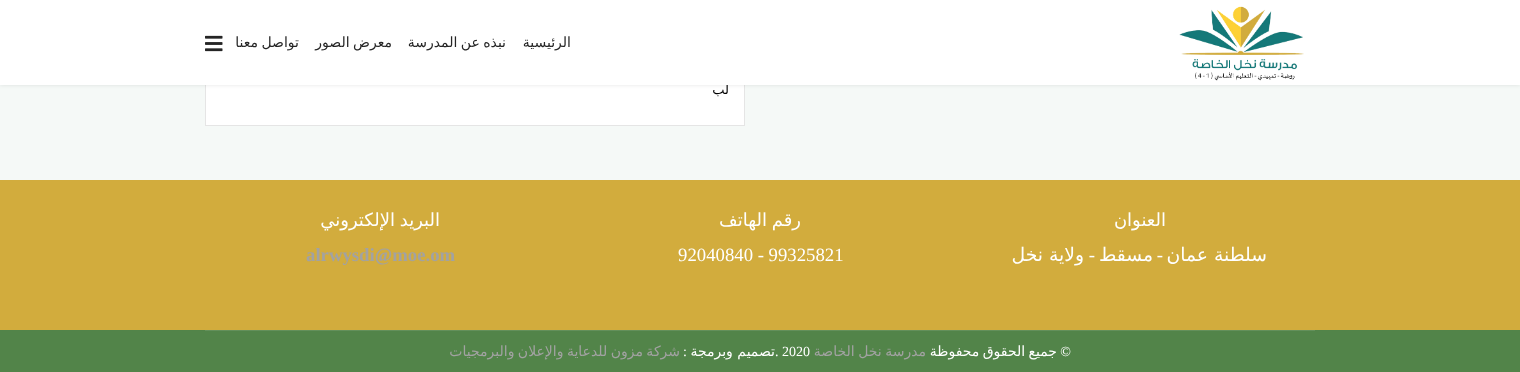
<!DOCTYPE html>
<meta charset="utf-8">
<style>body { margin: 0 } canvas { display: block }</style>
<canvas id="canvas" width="1520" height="372"></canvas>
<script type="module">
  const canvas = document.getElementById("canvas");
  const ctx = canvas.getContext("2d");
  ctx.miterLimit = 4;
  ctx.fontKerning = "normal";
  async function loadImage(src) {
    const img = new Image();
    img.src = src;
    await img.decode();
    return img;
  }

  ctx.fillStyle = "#d2ac3d";
  ctx.fillRect(0, 0, 1520, 372);
  ctx.fillStyle = "#f5f9f7";
  ctx.fillRect(0, 85, 1520, 95);
  ctx.fillStyle = "#ffffff";
  ctx.fillRect(206, 85, 538, 40);
  ctx.strokeStyle = "#e5e5e5";
  ctx.strokeRect(205.5, -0.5, 539, 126);
  ctx.fillStyle = "rgba(0, 0, 0, 0.1)";
  ctx.filter = "blur(2px)";
  ctx.beginPath();
  ctx.rect(0, 0, 1520, 85);
  ctx.fill();
  ctx.filter = "none";
  ctx.direction = "rtl";
  ctx.font = "13px DejaVu Sans";
  ctx.fillStyle = "#000000";
  ctx.fillText("لب", 729, 94);
  ctx.fillStyle = "#ffffff";
  ctx.fillRect(0, 0, 1520, 85);
  ctx.drawImage(await loadImage("img1.png"), 1179, 6, 125, 75);
  ctx.font = "14px DejaVu Sans";
  ctx.fillStyle = "#252525";
  ctx.fillText("الرئيسية", 571, 47);
  ctx.wordSpacing = "-1px";
  ctx.fillText("نبذه عن المدرسة", 506, 47);
  ctx.fillText("معرض الصور", 392, 47);
  ctx.fillText("تواصل معنا", 299, 47);
  ctx.drawImage(await loadImage("img2.png"), 205, 35, 18, 17);
  ctx.wordSpacing = "0px";
  ctx.font = "18px DejaVu Sans";
  ctx.fillStyle = "#ffffff";
  ctx.fillText("العنوان", 1166, 226);
  ctx.font = "18.75px DejaVu Sans";
  ctx.fillText("سلطنة عمان", 1267, 261);
  ctx.font = "18.75px Liberation Serif";
  ctx.fillText("-", 1163, 261);
  ctx.font = "18.75px DejaVu Sans";
  ctx.fillText("مسقط", 1153, 261);
  ctx.font = "18.75px Liberation Serif";
  ctx.fillText("-", 1095, 261);
  ctx.font = "18.75px DejaVu Sans";
  ctx.fillText("ولاية نخل", 1084, 261);
  ctx.wordSpacing = "-1px";
  ctx.font = "18px DejaVu Sans";
  ctx.fillText("رقم الهاتف", 801, 226);
  ctx.wordSpacing = "0px";
  ctx.direction = "ltr";
  ctx.font = "18.75px Liberation Serif";
  ctx.fillText("92040840 - 99325821", 678, 261);
  ctx.wordSpacing = "-1px";
  ctx.direction = "rtl";
  ctx.font = "18px DejaVu Sans";
  ctx.fillText("البريد الإلكتروني", 440, 226);
  ctx.wordSpacing = "0px";
  ctx.direction = "ltr";
  ctx.font = "bold 18.75px Liberation Serif";
  ctx.fillStyle = "#a2a2a2";
  ctx.fillText("alrwysdi@moe.om", 306, 261);
  ctx.fillStyle = "#528449";
  ctx.fillRect(0, 330, 1520, 42);
  ctx.fillStyle = "#63905b";
  ctx.fillRect(205, 330, 1110, 1);
  ctx.direction = "rtl";
  ctx.font = "14px Liberation Serif";
  ctx.fillStyle = "#ffffff";
  ctx.fillText("©", 1071, 356);
  ctx.wordSpacing = "-1px";
  ctx.font = "14px DejaVu Sans";
  ctx.fillText("جميع الحقوق محفوظة", 1057, 356);
  ctx.fillStyle = "#a2a2a2";
  ctx.fillText("مدرسة نخل الخاصة", 926, 356);
  ctx.wordSpacing = "0px";
  ctx.direction = "ltr";
  ctx.font = "14px Liberation Serif";
  ctx.fillStyle = "#ffffff";
  ctx.fillText(". 2020", 775, 356);
  ctx.direction = "rtl";
  ctx.font = "14px DejaVu Sans";
  ctx.fillText("تصميم وبرمجة", 775, 356);
  ctx.font = "14px Liberation Serif";
  ctx.fillText(":", 687, 356);
  ctx.wordSpacing = "-1px";
  ctx.font = "14px DejaVu Sans";
  ctx.fillStyle = "#a2a2a2";
  ctx.fillText("شركة مزون للدعاية والإعلان والبرمجيات", 680, 356);
</script>
